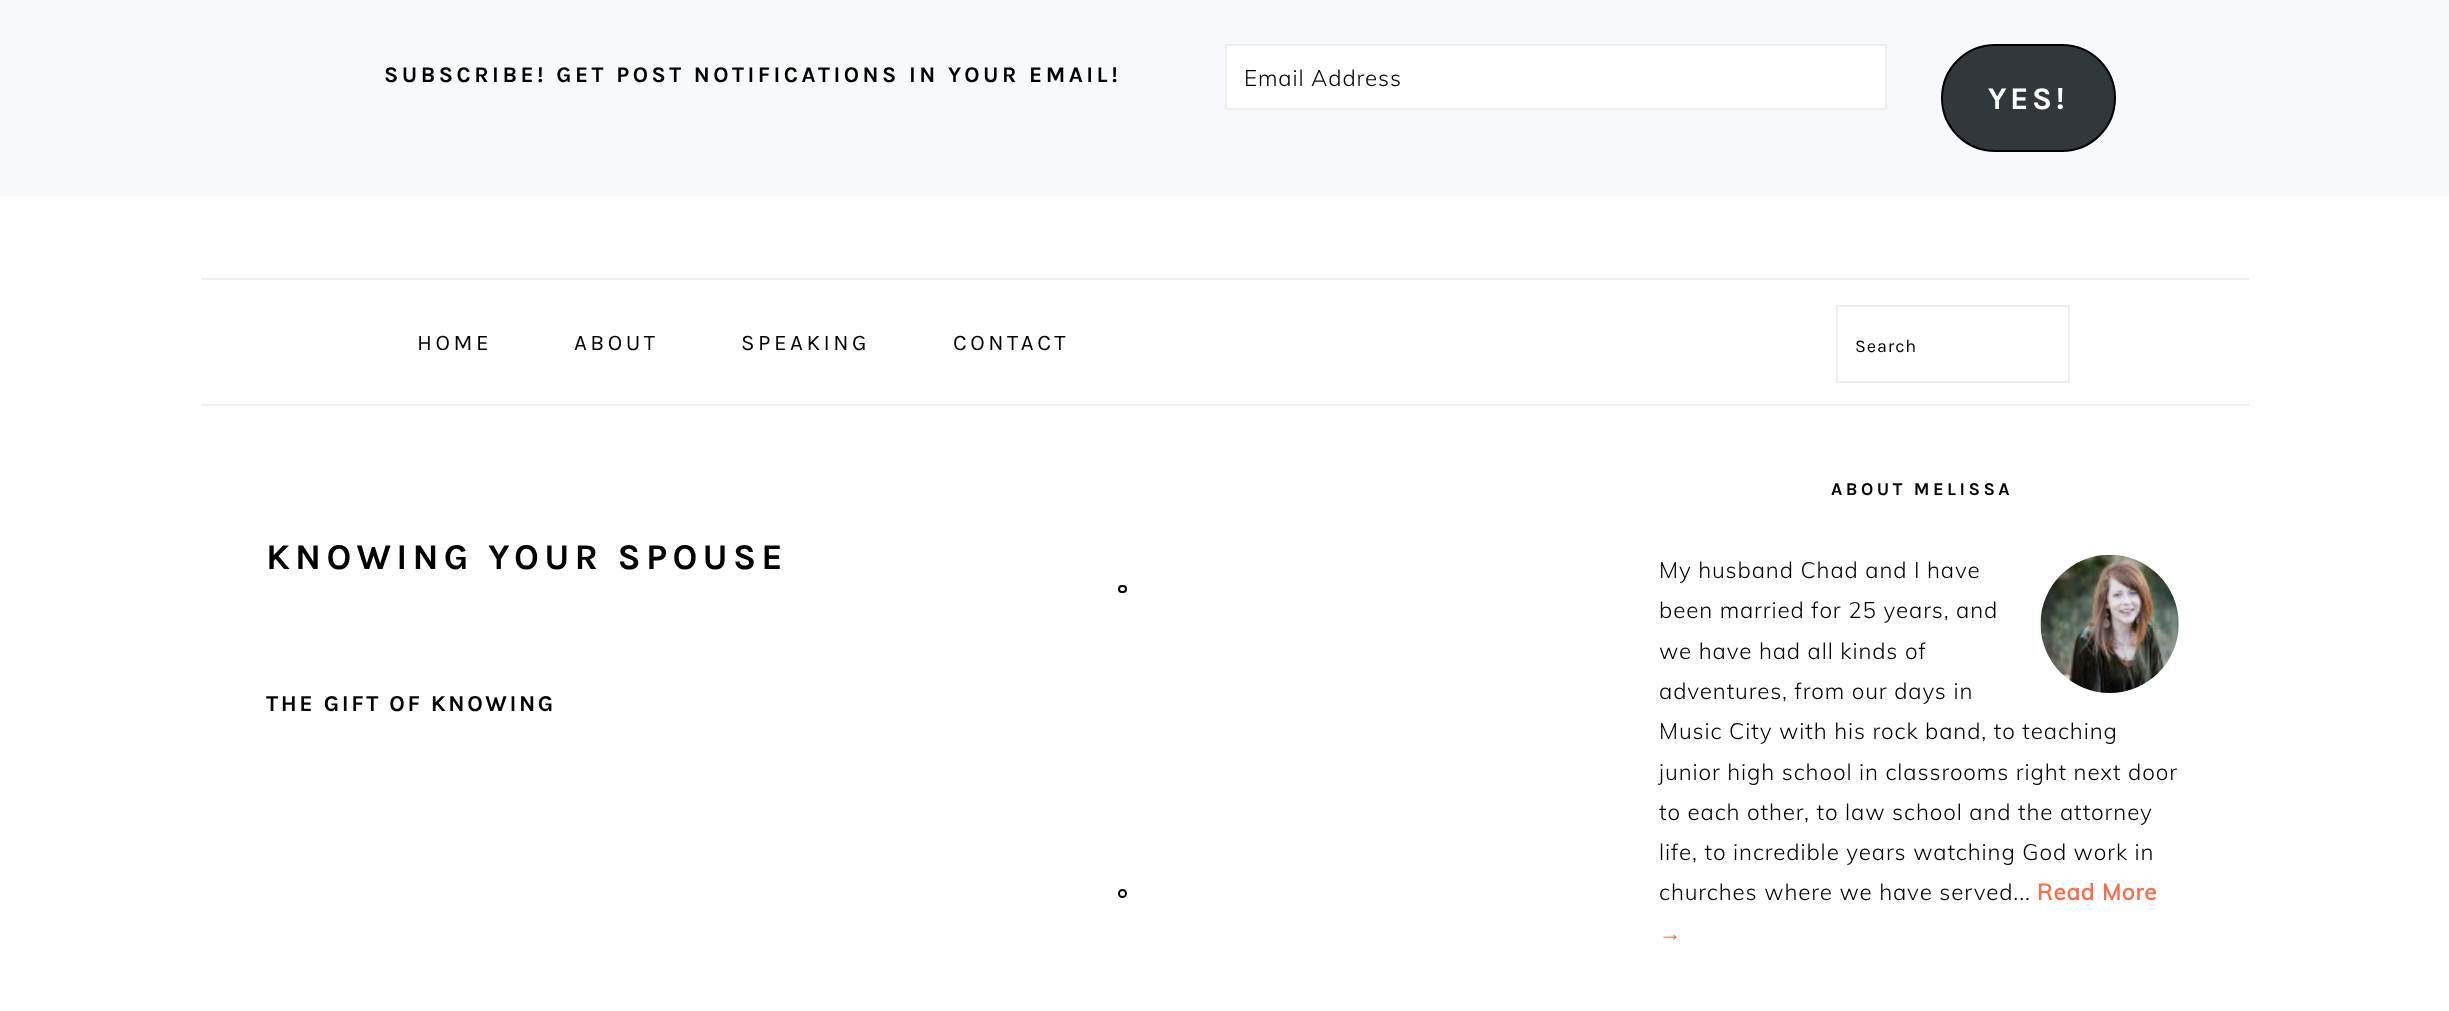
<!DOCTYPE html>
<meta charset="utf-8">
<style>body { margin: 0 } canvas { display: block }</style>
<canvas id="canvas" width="2449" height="1011"></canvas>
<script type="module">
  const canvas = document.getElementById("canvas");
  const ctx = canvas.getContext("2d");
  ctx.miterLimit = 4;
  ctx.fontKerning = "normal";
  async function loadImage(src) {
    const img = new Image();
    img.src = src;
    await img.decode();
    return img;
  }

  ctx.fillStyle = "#ffffff";
  ctx.fillRect(0, 0, 2449, 1011);
  ctx.fillStyle = "#f7f9fc";
  ctx.fillRect(0, 0, 2449, 196);
  ctx.letterSpacing = "3.5px";
  ctx.font = "bold 22.4px Karla";
  ctx.fillStyle = "#010101";
  ctx.fillText("SUBSCRIBE! GET POST NOTIFICATIONS IN YOUR EMAIL!", 384, 82);
  ctx.fillStyle = "#ffffff";
  ctx.beginPath();
  ctx.rect(1226, 45, 660, 64);
  ctx.fill();
  ctx.strokeStyle = "#eeeeee";
  ctx.lineWidth = 2;
  ctx.stroke();
  ctx.letterSpacing = "0.9px";
  ctx.font = "300 22.4px Muli";
  ctx.fillStyle = "#010101";
  ctx.fillText("Email Address", 1244, 86);
  ctx.fillStyle = "#32373c";
  ctx.beginPath();
  ctx.roundRect(1942, 45, 173, 106, 53);
  ctx.fill();
  ctx.strokeStyle = "#010101";
  ctx.stroke();
  ctx.letterSpacing = "3.5px";
  ctx.font = "bold 31.5px Karla";
  ctx.fillStyle = "#ffffff";
  ctx.fillText("YES!", 1988, 109);
  ctx.fillStyle = "#eeeeee";
  ctx.fillRect(201, 278, 2048, 2);
  ctx.fillRect(201, 404, 2048, 2);
  ctx.font = "22.4px Karla";
  ctx.fillStyle = "#010101";
  ctx.fillText("HOME", 417, 350);
  ctx.fillText("ABOUT", 574, 350);
  ctx.fillText("SPEAKING", 741, 350);
  ctx.fillText("CONTACT", 953, 350);
  ctx.strokeStyle = "#eeeeee";
  ctx.strokeRect(1837, 306, 232, 76);
  ctx.letterSpacing = "0.9px";
  ctx.font = "18px Karla";
  ctx.fillText("Search", 1855, 352);
  ctx.beginPath();
  ctx.roundRect(1119, 586, 7, 6, 3);
  ctx.strokeStyle = "#010101";
  ctx.stroke();
  ctx.beginPath();
  ctx.arc(1122.5, 893.5, 3.5, 0, Math.PI * 2);
  ctx.stroke();
  ctx.letterSpacing = "5.25px";
  ctx.font = "bold 36.4px Karla";
  ctx.fillText("KNOWING YOUR SPOUSE", 266, 569);
  ctx.letterSpacing = "2.6px";
  ctx.font = "bold 22.75px Karla";
  ctx.fillText("THE GIFT OF KNOWING", 266, 711);
  ctx.letterSpacing = "3.5px";
  ctx.font = "bold 18px Karla";
  ctx.fillText("ABOUT MELISSA", 1831, 495);
  ctx.letterSpacing = "0.9px";
  ctx.font = "300 22.4px Muli";
  ctx.fillText("My husband Chad and I have", 1659, 578);
  ctx.drawImage(await loadImage("img1.png"), 2040, 554, 139, 139);
  ctx.fillText("been married for 25 years, and", 1659, 618);
  ctx.fillText("we have had all kinds of", 1659, 659);
  ctx.fillText("adventures, from our days in", 1659, 699);
  ctx.fillText("Music City with his rock band, to teaching", 1659, 739);
  ctx.fillText("junior high school in classrooms right next door", 1659, 780);
  ctx.fillText("to each other, to law school and the attorney", 1659, 820);
  ctx.fillText("life, to incredible years watching God work in", 1659, 860);
  ctx.fillText("churches where we have served...", 1659, 900);
  ctx.font = "bold 22.4px Muli";
  ctx.fillStyle = "#fb6a4a";
  ctx.fillText("Read More", 2037, 900);
  ctx.font = "bold 22.4px Liberation Sans";
  ctx.fillText("→", 1659, 941);
</script>
